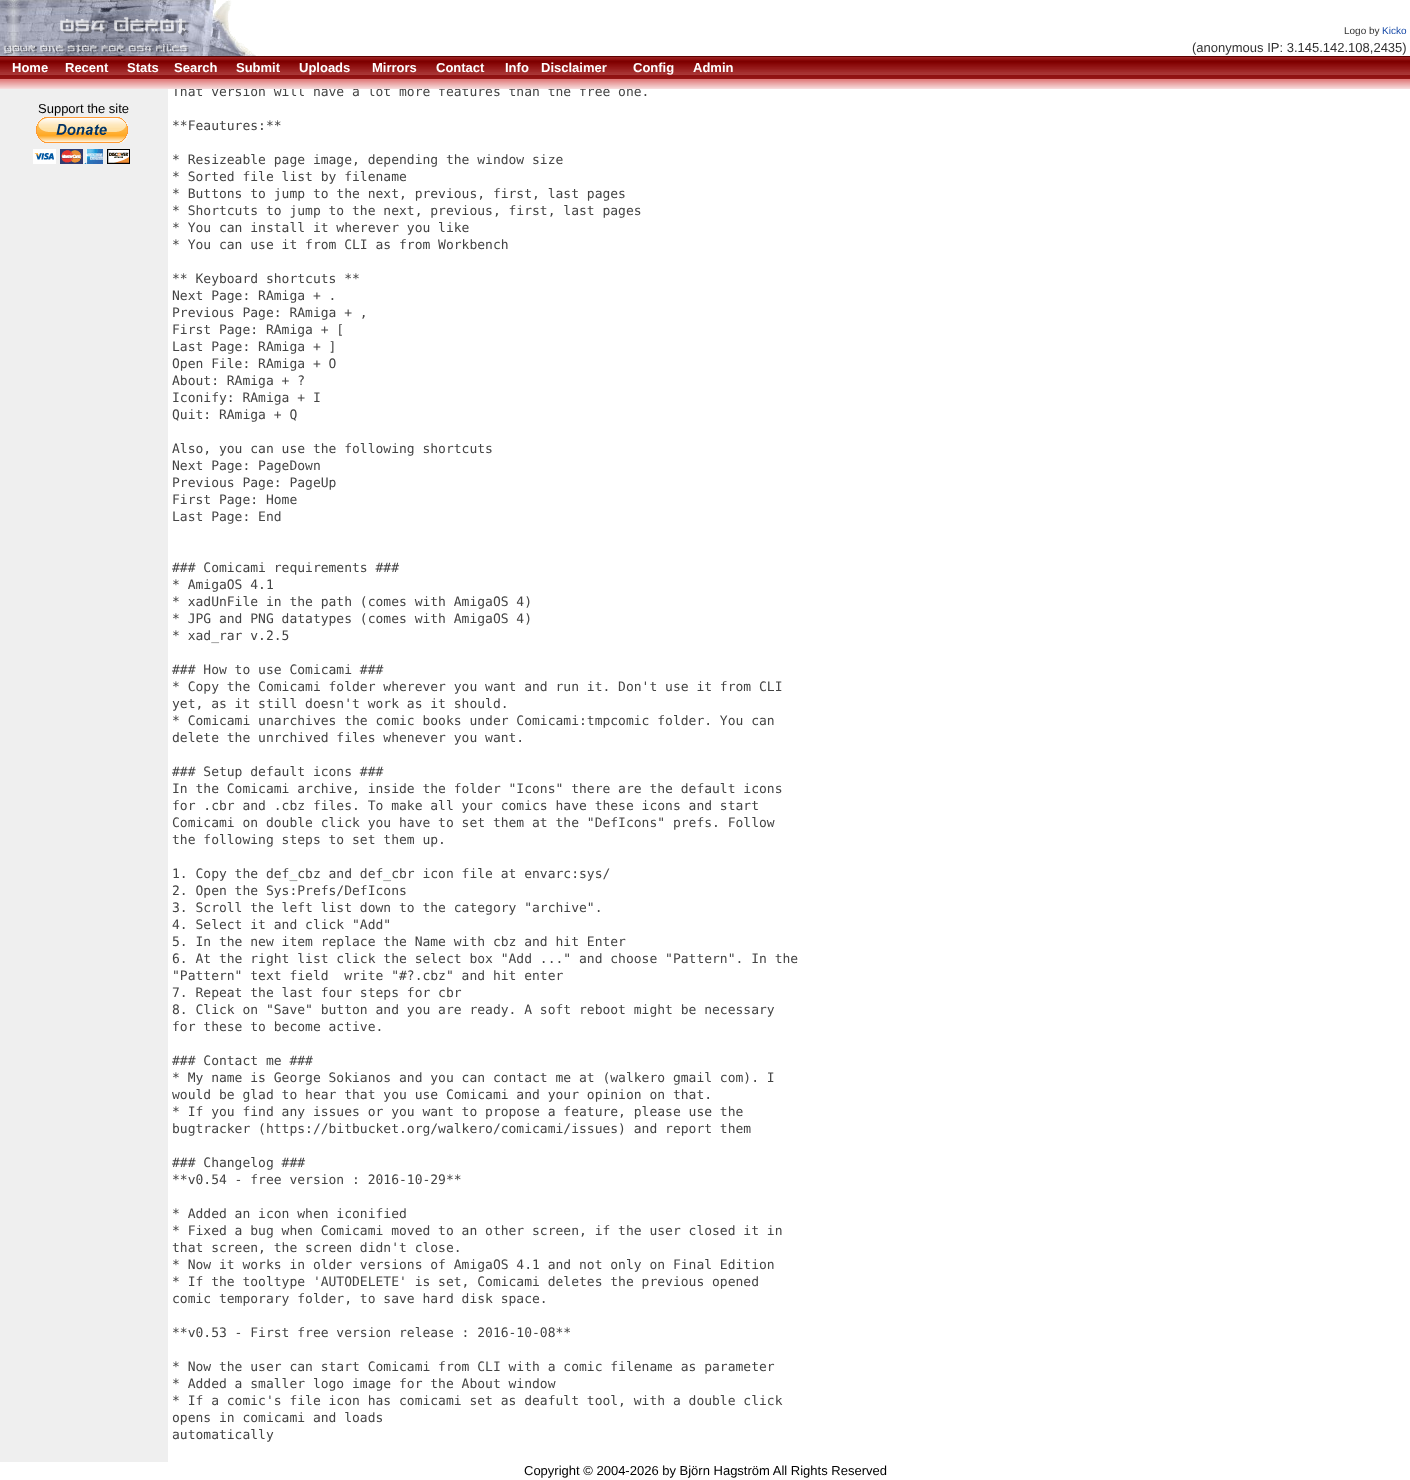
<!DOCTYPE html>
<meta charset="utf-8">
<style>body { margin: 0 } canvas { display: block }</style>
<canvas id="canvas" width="1410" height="1480"></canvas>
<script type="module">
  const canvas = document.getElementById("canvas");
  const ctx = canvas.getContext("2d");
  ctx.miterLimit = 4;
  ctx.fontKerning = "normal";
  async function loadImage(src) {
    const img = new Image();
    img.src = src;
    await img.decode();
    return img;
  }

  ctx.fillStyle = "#ffffff";
  ctx.fillRect(0, 0, 1410, 1480);
  ctx.drawImage(await loadImage("img1.png"), 0, 0, 265, 56);
  ctx.font = "10px Liberation Sans";
  ctx.fillStyle = "#333333";
  ctx.fillText("Logo by", 1344, 34);
  ctx.fillStyle = "#1649a7";
  ctx.fillText("Kicko", 1382, 34);
  ctx.font = "13px Liberation Sans";
  ctx.fillStyle = "#333333";
  ctx.fillText("(anonymous IP: 3.145.142.108,2435)", 1192, 52);
  ctx.drawImage(await loadImage("img2.png"), 0, 56, 1410, 23);
  ctx.font = "bold 13px Liberation Sans";
  ctx.fillStyle = "#ffffff";
  ctx.fillText("Home", 12, 72);
  ctx.fillText("Recent", 65, 72);
  ctx.fillText("Stats", 127, 72);
  ctx.fillText("Search", 174, 72);
  ctx.fillText("Submit", 236, 72);
  ctx.fillText("Uploads", 299, 72);
  ctx.fillText("Mirrors", 372, 72);
  ctx.fillText("Contact", 436, 72);
  ctx.fillText("Info", 505, 72);
  ctx.fillText("Disclaimer", 541, 72);
  ctx.fillText("Config", 633, 72);
  ctx.fillText("Admin", 693, 72);
  ctx.fillStyle = "#e18080";
  ctx.fillRect(0, 79, 1410, 1);
  ctx.font = "13px DejaVu Sans Mono";
  ctx.fillStyle = "#444444";
  ctx.fillText("That version will have a lot more features than the free one.", 172, 96);
  ctx.drawImage(await loadImage("img3.png"), 0, 80, 1410, 9);
  ctx.fillStyle = "#efefef";
  ctx.fillRect(0, 89, 168, 1373);
  ctx.font = "13px Liberation Sans";
  ctx.fillStyle = "#000000";
  ctx.fillText("Support the site", 38, 113);
  ctx.drawImage(await loadImage("img4.png"), 33, 117, 97, 47);
  ctx.font = "13px DejaVu Sans Mono";
  ctx.fillStyle = "#444444";
  ctx.fillText("**Feautures:**", 172, 130);
  ctx.fillText("* Resizeable page image, depending the window size", 172, 164);
  ctx.fillText("* Sorted file list by filename", 172, 181);
  ctx.fillText("* Buttons to jump to the next, previous, first, last pages", 172, 198);
  ctx.fillText("* Shortcuts to jump to the next, previous, first, last pages", 172, 215);
  ctx.fillText("* You can install it wherever you like", 172, 232);
  ctx.fillText("* You can use it from CLI as from Workbench", 172, 249);
  ctx.fillText("** Keyboard shortcuts **", 172, 283);
  ctx.fillText("Next Page: RAmiga + .", 172, 300);
  ctx.fillText("Previous Page: RAmiga + ,", 172, 317);
  ctx.fillText("First Page: RAmiga + [", 172, 334);
  ctx.fillText("Last Page: RAmiga + ]", 172, 351);
  ctx.fillText("Open File: RAmiga + O", 172, 368);
  ctx.fillText("About: RAmiga + ?", 172, 385);
  ctx.fillText("Iconify: RAmiga + I", 172, 402);
  ctx.fillText("Quit: RAmiga + Q", 172, 419);
  ctx.fillText("Also, you can use the following shortcuts", 172, 453);
  ctx.fillText("Next Page: PageDown", 172, 470);
  ctx.fillText("Previous Page: PageUp", 172, 487);
  ctx.fillText("First Page: Home", 172, 504);
  ctx.fillText("Last Page: End", 172, 521);
  ctx.fillText("### Comicami requirements ###", 172, 572);
  ctx.fillText("* AmigaOS 4.1", 172, 589);
  ctx.fillText("* xadUnFile in the path (comes with AmigaOS 4)", 172, 606);
  ctx.fillText("* JPG and PNG datatypes (comes with AmigaOS 4)", 172, 623);
  ctx.fillText("* xad_rar v.2.5", 172, 640);
  ctx.fillText("### How to use Comicami ###", 172, 674);
  ctx.fillText("* Copy the Comicami folder wherever you want and run it. Don't use it from CLI", 172, 691);
  ctx.fillText("yet, as it still doesn't work as it should.", 172, 708);
  ctx.fillText("* Comicami unarchives the comic books under Comicami:tmpcomic folder. You can", 172, 725);
  ctx.fillText("delete the unrchived files whenever you want.", 172, 742);
  ctx.fillText("### Setup default icons ###", 172, 776);
  ctx.fillText("In the Comicami archive, inside the folder \"Icons\" there are the default icons", 172, 793);
  ctx.fillText("for .cbr and .cbz files. To make all your comics have these icons and start", 172, 810);
  ctx.fillText("Comicami on double click you have to set them at the \"DefIcons\" prefs. Follow", 172, 827);
  ctx.fillText("the following steps to set them up.", 172, 844);
  ctx.fillText("1. Copy the def_cbz and def_cbr icon file at envarc:sys/", 172, 878);
  ctx.fillText("2. Open the Sys:Prefs/DefIcons", 172, 895);
  ctx.fillText("3. Scroll the left list down to the category \"archive\".", 172, 912);
  ctx.fillText("4. Select it and click \"Add\"", 172, 929);
  ctx.fillText("5. In the new item replace the Name with cbz and hit Enter", 172, 946);
  ctx.fillText("6. At the right list click the select box \"Add ...\" and choose \"Pattern\". In the", 172, 963);
  ctx.fillText("\"Pattern\" text field  write \"#?.cbz\" and hit enter", 172, 980);
  ctx.fillText("7. Repeat the last four steps for cbr", 172, 997);
  ctx.fillText("8. Click on \"Save\" button and you are ready. A soft reboot might be necessary", 172, 1014);
  ctx.fillText("for these to become active.", 172, 1031);
  ctx.fillText("### Contact me ###", 172, 1065);
  ctx.fillText("* My name is George Sokianos and you can contact me at (walkero gmail com). I", 172, 1082);
  ctx.fillText("would be glad to hear that you use Comicami and your opinion on that.", 172, 1099);
  ctx.fillText("* If you find any issues or you want to propose a feature, please use the", 172, 1116);
  ctx.fillText("bugtracker (https://bitbucket.org/walkero/comicami/issues) and report them", 172, 1133);
  ctx.fillText("### Changelog ###", 172, 1167);
  ctx.fillText("**v0.54 - free version : 2016-10-29**", 172, 1184);
  ctx.fillText("* Added an icon when iconified", 172, 1218);
  ctx.fillText("* Fixed a bug when Comicami moved to an other screen, if the user closed it in", 172, 1235);
  ctx.fillText("that screen, the screen didn't close.", 172, 1252);
  ctx.fillText("* Now it works in older versions of AmigaOS 4.1 and not only on Final Edition", 172, 1269);
  ctx.fillText("* If the tooltype 'AUTODELETE' is set, Comicami deletes the previous opened", 172, 1286);
  ctx.fillText("comic temporary folder, to save hard disk space.", 172, 1303);
  ctx.fillText("**v0.53 - First free version release : 2016-10-08**", 172, 1337);
  ctx.fillText("* Now the user can start Comicami from CLI with a comic filename as parameter", 172, 1371);
  ctx.fillText("* Added a smaller logo image for the About window", 172, 1388);
  ctx.fillText("* If a comic's file icon has comicami set as deafult tool, with a double click", 172, 1405);
  ctx.fillText("opens in comicami and loads", 172, 1422);
  ctx.fillText("automatically", 172, 1439);
  ctx.font = "13px Liberation Sans";
  ctx.fillStyle = "#000000";
  ctx.fillText("Copyright © 2004-2026 by Björn Hagström All Rights Reserved", 524, 1475);
</script>
